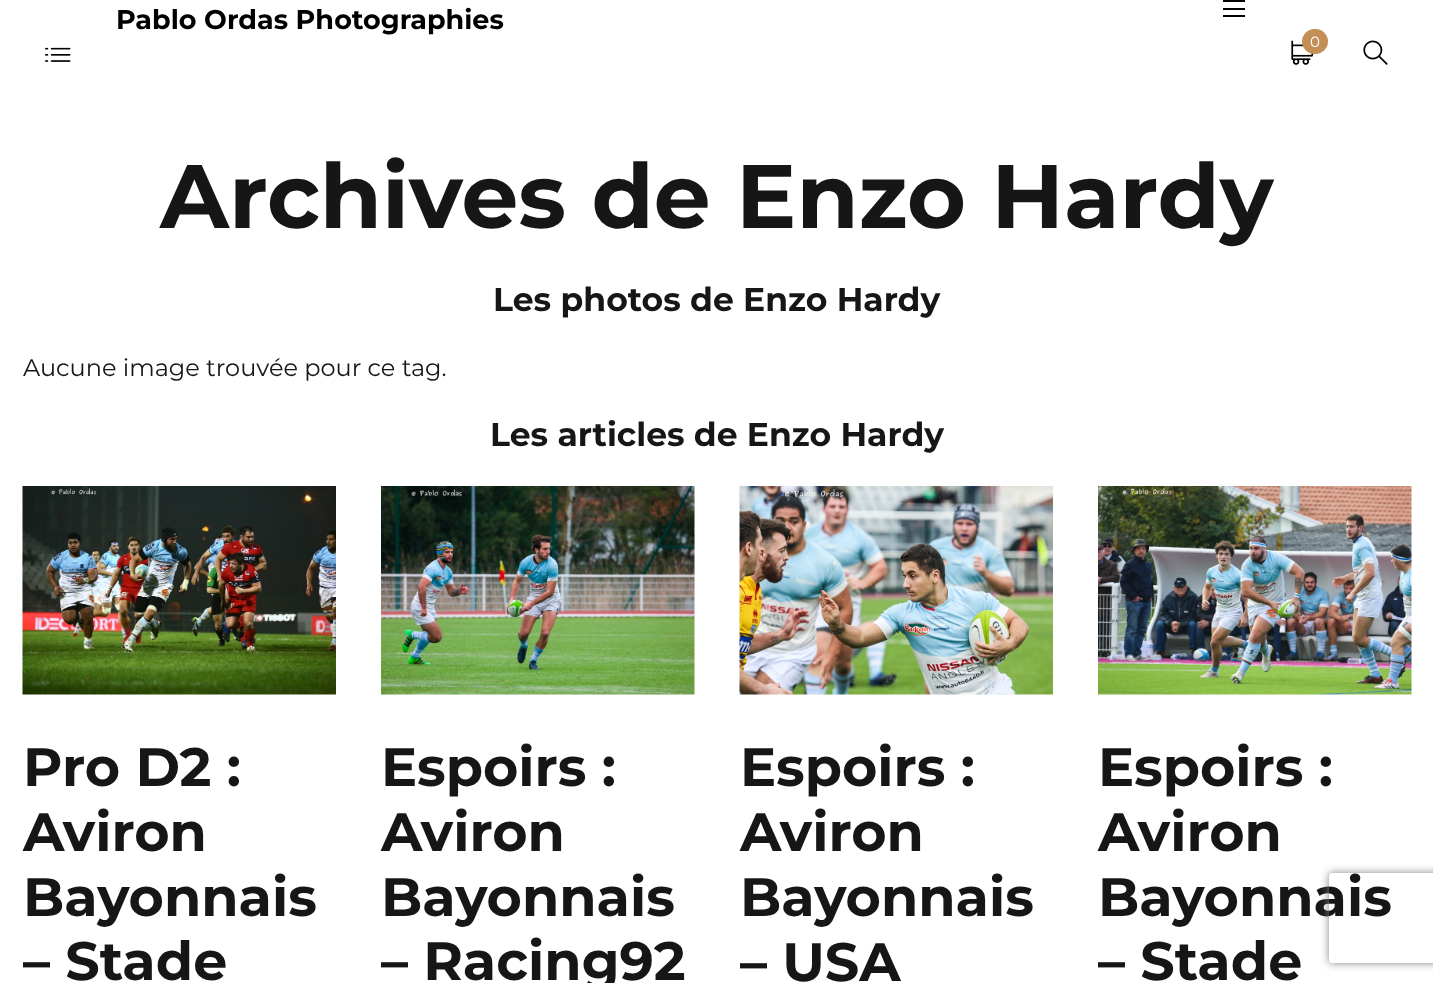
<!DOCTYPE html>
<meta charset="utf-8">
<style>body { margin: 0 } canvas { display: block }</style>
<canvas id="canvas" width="1433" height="983"></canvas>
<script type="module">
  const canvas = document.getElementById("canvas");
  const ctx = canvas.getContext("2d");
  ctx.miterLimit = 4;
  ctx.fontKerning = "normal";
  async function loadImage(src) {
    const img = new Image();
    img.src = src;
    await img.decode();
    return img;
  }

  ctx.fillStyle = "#ffffff";
  ctx.fillRect(0, 0, 1433, 983);
  ctx.font = "bold 27px Montserrat";
  ctx.fillStyle = "#000000";
  ctx.fillText("Pablo Ordas Photographies", 116, 29);
  ctx.fillRect(1223, 0, 22, 2);
  ctx.fillRect(1223, 8, 22, 2);
  ctx.fillRect(1223, 15, 22, 2);
  ctx.drawImage(await loadImage("img1.png"), 1291, 40, 23, 25);
  ctx.fillStyle = "#c48f56";
  ctx.beginPath();
  ctx.roundRect(1302, 29, 26, 25, 12.5);
  ctx.fill();
  ctx.font = "15px Montserrat";
  ctx.fillStyle = "#ffffff";
  ctx.fillText("0", 1310, 47);
  ctx.drawImage(await loadImage("img2.png"), 1363, 40, 25, 25);
  ctx.drawImage(await loadImage("img3.png"), 45, 47, 26, 15);
  ctx.font = "bold 90px Montserrat";
  ctx.fillStyle = "#161616";
  ctx.fillText("Archives de Enzo Hardy", 160, 228);
  ctx.font = "bold 33px Montserrat";
  ctx.fillText("Les photos de Enzo Hardy", 493, 311);
  ctx.font = "24px Montserrat";
  ctx.fillText("Aucune image trouvée pour ce tag.", 23, 376);
  ctx.font = "bold 33px Montserrat";
  ctx.fillText("Les articles de Enzo Hardy", 490, 446);
  ctx.drawImage(await loadImage("img4.png"), 22, 486, 314, 209);
  ctx.font = "bold 54px Montserrat";
  ctx.fillText("Pro D2 :", 23, 786);
  ctx.fillText("Aviron", 23, 851);
  ctx.fillText("Bayonnais", 23, 916);
  ctx.fillText("– Stade", 23, 980);
  ctx.drawImage(await loadImage("img5.png"), 381, 486, 314, 209);
  ctx.fillText("Espoirs :", 381, 786);
  ctx.fillText("Aviron", 381, 851);
  ctx.fillText("Bayonnais", 381, 916);
  ctx.fillText("– Racing92", 381, 980);
  ctx.drawImage(await loadImage("img6.png"), 739, 486, 314, 209);
  ctx.fillText("Espoirs :", 740, 786);
  ctx.fillText("Aviron", 740, 851);
  ctx.fillText("Bayonnais", 740, 916);
  ctx.fillText("– USA", 740, 981);
  ctx.drawImage(await loadImage("img7.png"), 1098, 486, 314, 209);
  ctx.fillText("Espoirs :", 1098, 786);
  ctx.fillText("Aviron", 1098, 851);
  ctx.fillText("Bayonnais", 1098, 916);
  ctx.fillText("– Stade", 1098, 980);
  ctx.save();
  ctx.beginPath();
  ctx.moveTo(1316, 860);
  ctx.lineTo(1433, 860);
  ctx.lineTo(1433, 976);
  ctx.lineTo(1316, 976);
  ctx.closePath();
  ctx.moveTo(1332, 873);
  ctx.lineTo(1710, 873);
  ctx.bezierCurveTo(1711.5, 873, 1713, 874.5, 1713, 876);
  ctx.lineTo(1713, 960);
  ctx.bezierCurveTo(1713, 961.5, 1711.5, 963, 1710, 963);
  ctx.lineTo(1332, 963);
  ctx.bezierCurveTo(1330.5, 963, 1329, 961.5, 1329, 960);
  ctx.lineTo(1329, 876);
  ctx.bezierCurveTo(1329, 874.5, 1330.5, 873, 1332, 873);
  ctx.closePath();
  ctx.clip("evenodd");
  ctx.fillStyle = "#808080";
  ctx.filter = "blur(4px)";
  ctx.beginPath();
  ctx.roundRect(1329, 873, 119, 90, 3);
  ctx.fill();
  ctx.filter = "none";
  ctx.restore();
</script>
